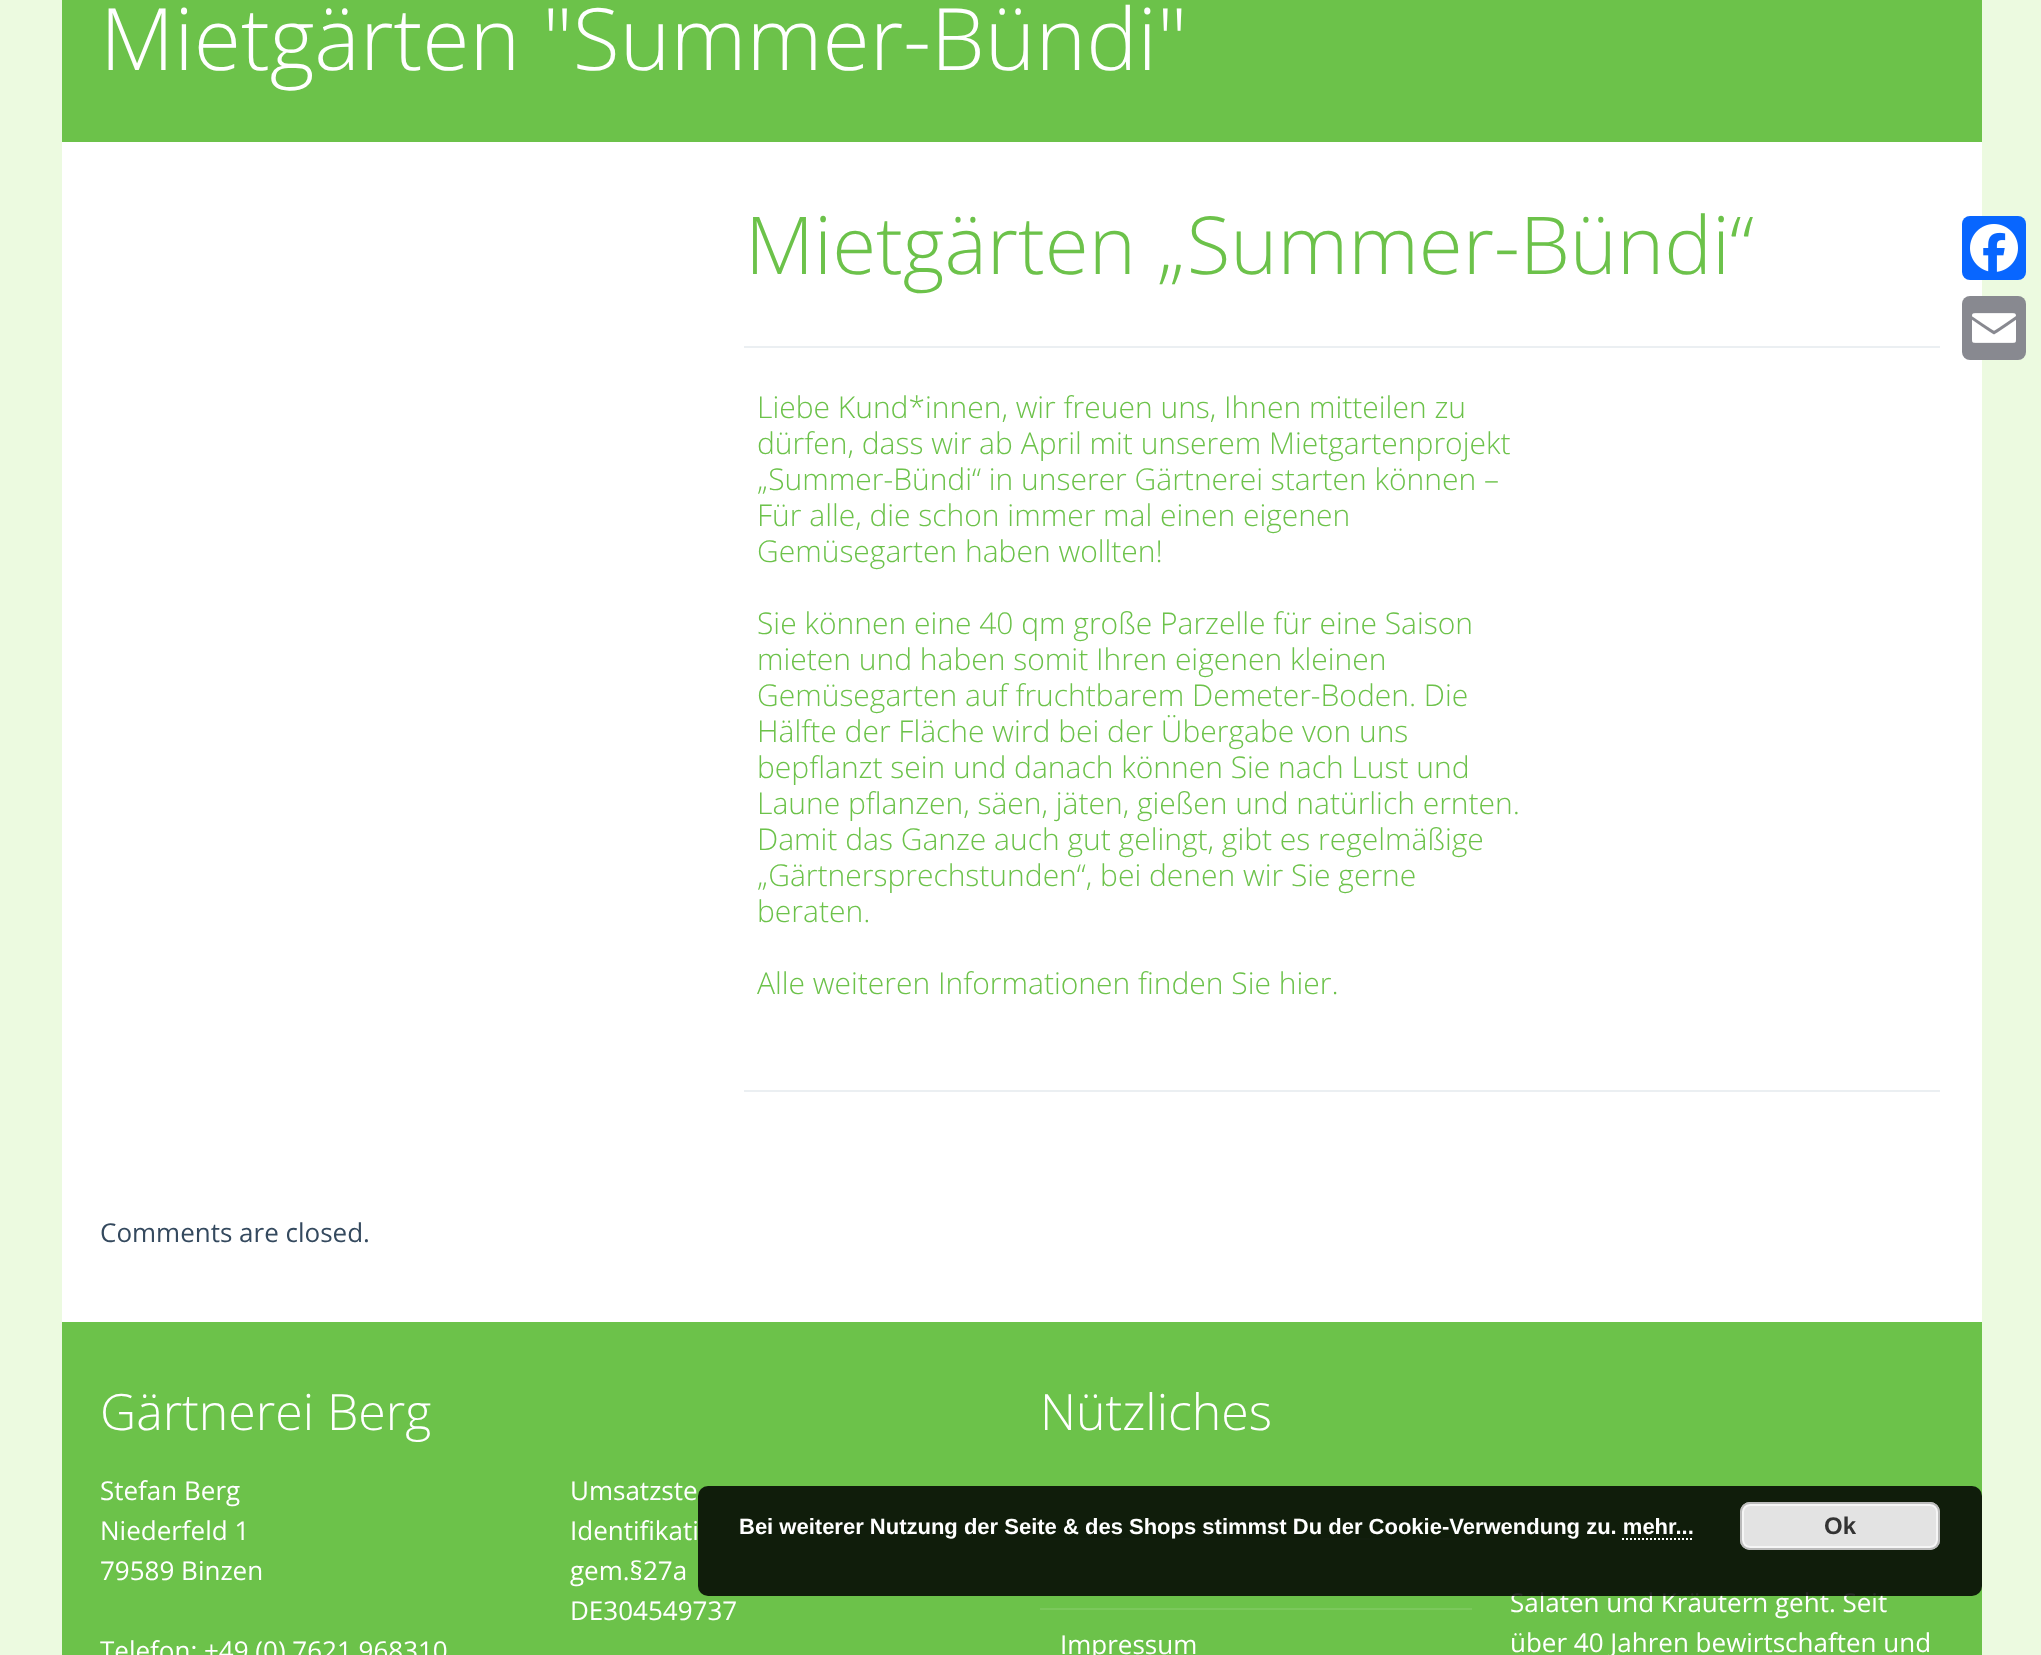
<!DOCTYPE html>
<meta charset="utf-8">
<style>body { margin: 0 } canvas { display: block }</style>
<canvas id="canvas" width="2041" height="1655"></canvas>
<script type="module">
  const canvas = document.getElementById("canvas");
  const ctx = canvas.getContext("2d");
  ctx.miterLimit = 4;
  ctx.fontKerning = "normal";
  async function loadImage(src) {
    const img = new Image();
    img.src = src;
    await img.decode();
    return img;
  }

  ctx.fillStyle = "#ecfae0";
  ctx.fillRect(0, 0, 2041, 1655);
  ctx.fillStyle = "#ffffff";
  ctx.fillRect(62, 142, 1920, 1180);
  ctx.fillStyle = "#6cc24a";
  ctx.fillRect(62, 0, 1920, 142);
  ctx.font = "300 86px Open Sans";
  ctx.fillStyle = "#ffffff";
  ctx.fillText("Mietgärten \"Summer-Bündi\"", 100, 70);
  ctx.font = "300 80px Open Sans";
  ctx.fillStyle = "#6cc24a";
  ctx.fillText("Mietgärten „Summer-Bündi“", 745, 274);
  ctx.fillStyle = "#ebeff2";
  ctx.fillRect(744, 346, 1196, 2);
  ctx.font = "300 30px Open Sans";
  ctx.fillStyle = "#6cc24a";
  ctx.fillText("Liebe Kund*innen, wir freuen uns, Ihnen mitteilen zu", 757, 418);
  ctx.fillText("dürfen, dass wir ab April mit unserem Mietgartenprojekt", 757, 454);
  ctx.fillText("„Summer-Bündi“ in unserer Gärtnerei starten können –", 757, 490);
  ctx.fillText("Für alle, die schon immer mal einen eigenen", 757, 526);
  ctx.fillText("Gemüsegarten haben wollten!", 757, 562);
  ctx.fillText("Sie können eine 40 qm große Parzelle für eine Saison", 757, 634);
  ctx.fillText("mieten und haben somit Ihren eigenen kleinen", 757, 670);
  ctx.fillText("Gemüsegarten auf fruchtbarem Demeter-Boden. Die", 757, 706);
  ctx.fillText("Hälfte der Fläche wird bei der Übergabe von uns", 757, 742);
  ctx.fillText("bepflanzt sein und danach können Sie nach Lust und", 757, 778);
  ctx.fillText("Laune pflanzen, säen, jäten, gießen und natürlich ernten.", 757, 814);
  ctx.fillText("Damit das Ganze auch gut gelingt, gibt es regelmäßige", 757, 850);
  ctx.fillText("„Gärtnersprechstunden“, bei denen wir Sie gerne", 757, 886);
  ctx.fillText("beraten.", 757, 922);
  ctx.fillText("Alle weiteren Informationen finden Sie hier.", 757, 994);
  ctx.fillStyle = "#ebeff2";
  ctx.fillRect(744, 1090, 1196, 2);
  ctx.font = "26px Open Sans";
  ctx.fillStyle = "#34495e";
  ctx.fillText("Comments are closed.", 100, 1242);
  ctx.fillStyle = "#6cc24a";
  ctx.fillRect(62, 1322, 1920, 333);
  ctx.font = "300 50px Open Sans";
  ctx.fillStyle = "#ffffff";
  ctx.fillText("Gärtnerei Berg", 100, 1430);
  ctx.font = "26px Open Sans";
  ctx.fillText("Stefan Berg", 100, 1500);
  ctx.fillText("Niederfeld 1", 100, 1540);
  ctx.fillText("79589 Binzen", 100, 1580);
  ctx.fillText("Telefon: +49 (0) 7621 968310", 100, 1660);
  ctx.fillText("Umsatzste", 570, 1500);
  ctx.fillText("Identifikati", 570, 1540);
  ctx.fillText("gem.§27a", 570, 1580);
  ctx.fillText("DE304549737", 570, 1620);
  ctx.font = "300 50px Open Sans";
  ctx.fillText("Nützliches", 1040, 1430);
  ctx.fillStyle = "#7bc85c";
  ctx.fillRect(1040, 1538, 432, 2);
  ctx.fillRect(1040, 1608, 432, 2);
  ctx.font = "26px Open Sans";
  ctx.fillStyle = "#ffffff";
  ctx.fillText("Impressum", 1060, 1654);
  ctx.fillText("Salaten und Kräutern geht. Seit", 1510, 1612);
  ctx.fillText("über 40 Jahren bewirtschaften und", 1510, 1652);
  ctx.fillStyle = "#0866ff";
  ctx.beginPath();
  ctx.roundRect(1962, 216, 64, 64, 8);
  ctx.fill();
  ctx.drawImage(await loadImage("img1.png"), 1970, 224, 48, 48);
  ctx.fillStyle = "#888990";
  ctx.beginPath();
  ctx.roundRect(1962, 296, 64, 64, 8);
  ctx.fill();
  ctx.drawImage(await loadImage("img2.png"), 1972, 313, 44, 30);
  ctx.fillStyle = "rgba(0, 0, 0, 0.85)";
  ctx.beginPath();
  ctx.roundRect(698, 1486, 1284, 110, 10);
  ctx.fill();
  ctx.font = "bold 22px Liberation Sans";
  ctx.fillStyle = "#ffffff";
  ctx.fillText("Bei weiterer Nutzung der Seite & des Shops stimmst Du der Cookie-Verwendung zu. mehr...", 739, 1534);
  ctx.fillStyle = "#e3e3e3";
  ctx.beginPath();
  ctx.roundRect(1740, 1502, 200, 48, 10);
  ctx.fill();
  ctx.beginPath();
  ctx.roundRect(1743, 1505, 194, 42, 7);
  ctx.strokeStyle = "#f6f6f6";
  ctx.lineWidth = 2;
  ctx.stroke();
  ctx.beginPath();
  ctx.roundRect(1741, 1503, 198, 46, 9);
  ctx.strokeStyle = "#bbbbbb";
  ctx.stroke();
  ctx.font = "bold 24px Liberation Sans";
  ctx.fillStyle = "#333333";
  ctx.fillText("Ok", 1824, 1534);
  ctx.beginPath();
  ctx.moveTo(1622, 1539);
  ctx.lineTo(1694, 1539);
  ctx.strokeStyle = "#ffffff";
  ctx.setLineDash([2, 2]);
  ctx.stroke();
</script>
